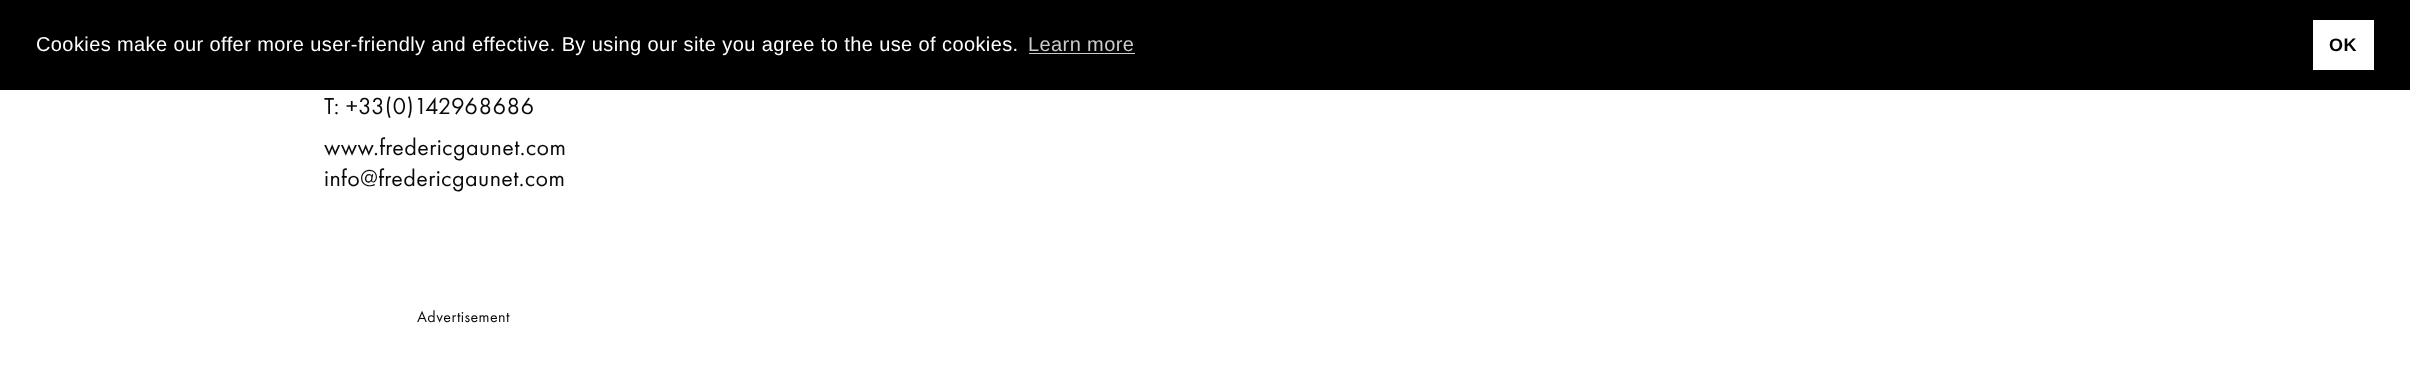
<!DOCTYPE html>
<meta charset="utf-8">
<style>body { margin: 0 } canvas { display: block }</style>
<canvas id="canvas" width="2410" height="392"></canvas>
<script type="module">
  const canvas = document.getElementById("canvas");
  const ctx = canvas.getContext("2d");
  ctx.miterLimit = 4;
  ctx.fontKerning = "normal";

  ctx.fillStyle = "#ffffff";
  ctx.fillRect(0, 0, 2410, 392);
  ctx.fillStyle = "#000000";
  ctx.fillRect(0, 0, 2410, 90);
  ctx.letterSpacing = "0.4px";
  ctx.font = "20px Liberation Sans";
  ctx.fillStyle = "#ffffff";
  ctx.fillText("Cookies make our offer more user-friendly and effective. By using our site you agree to the use of cookies.", 36, 51);
  ctx.fillStyle = "#cccccc";
  ctx.fillText("Learn more", 1028, 51);
  ctx.fillRect(1029, 53, 106, 1);
  ctx.fillStyle = "#ffffff";
  ctx.fillRect(2313, 20, 61, 50);
  ctx.font = "bold 18px Liberation Sans";
  ctx.fillStyle = "#000000";
  ctx.fillText("OK", 2329, 51);
  ctx.font = "24px Futura PT";
  ctx.fillStyle = "#0a0a0a";
  ctx.fillText("T: +33(0)142968686", 324, 114);
  ctx.fillText("www.fredericgaunet.com", 324, 155);
  ctx.fillText("info@fredericgaunet.com", 324, 186);
  ctx.font = "16px Futura PT";
  ctx.fillText("Advertisement", 417, 322);
</script>
